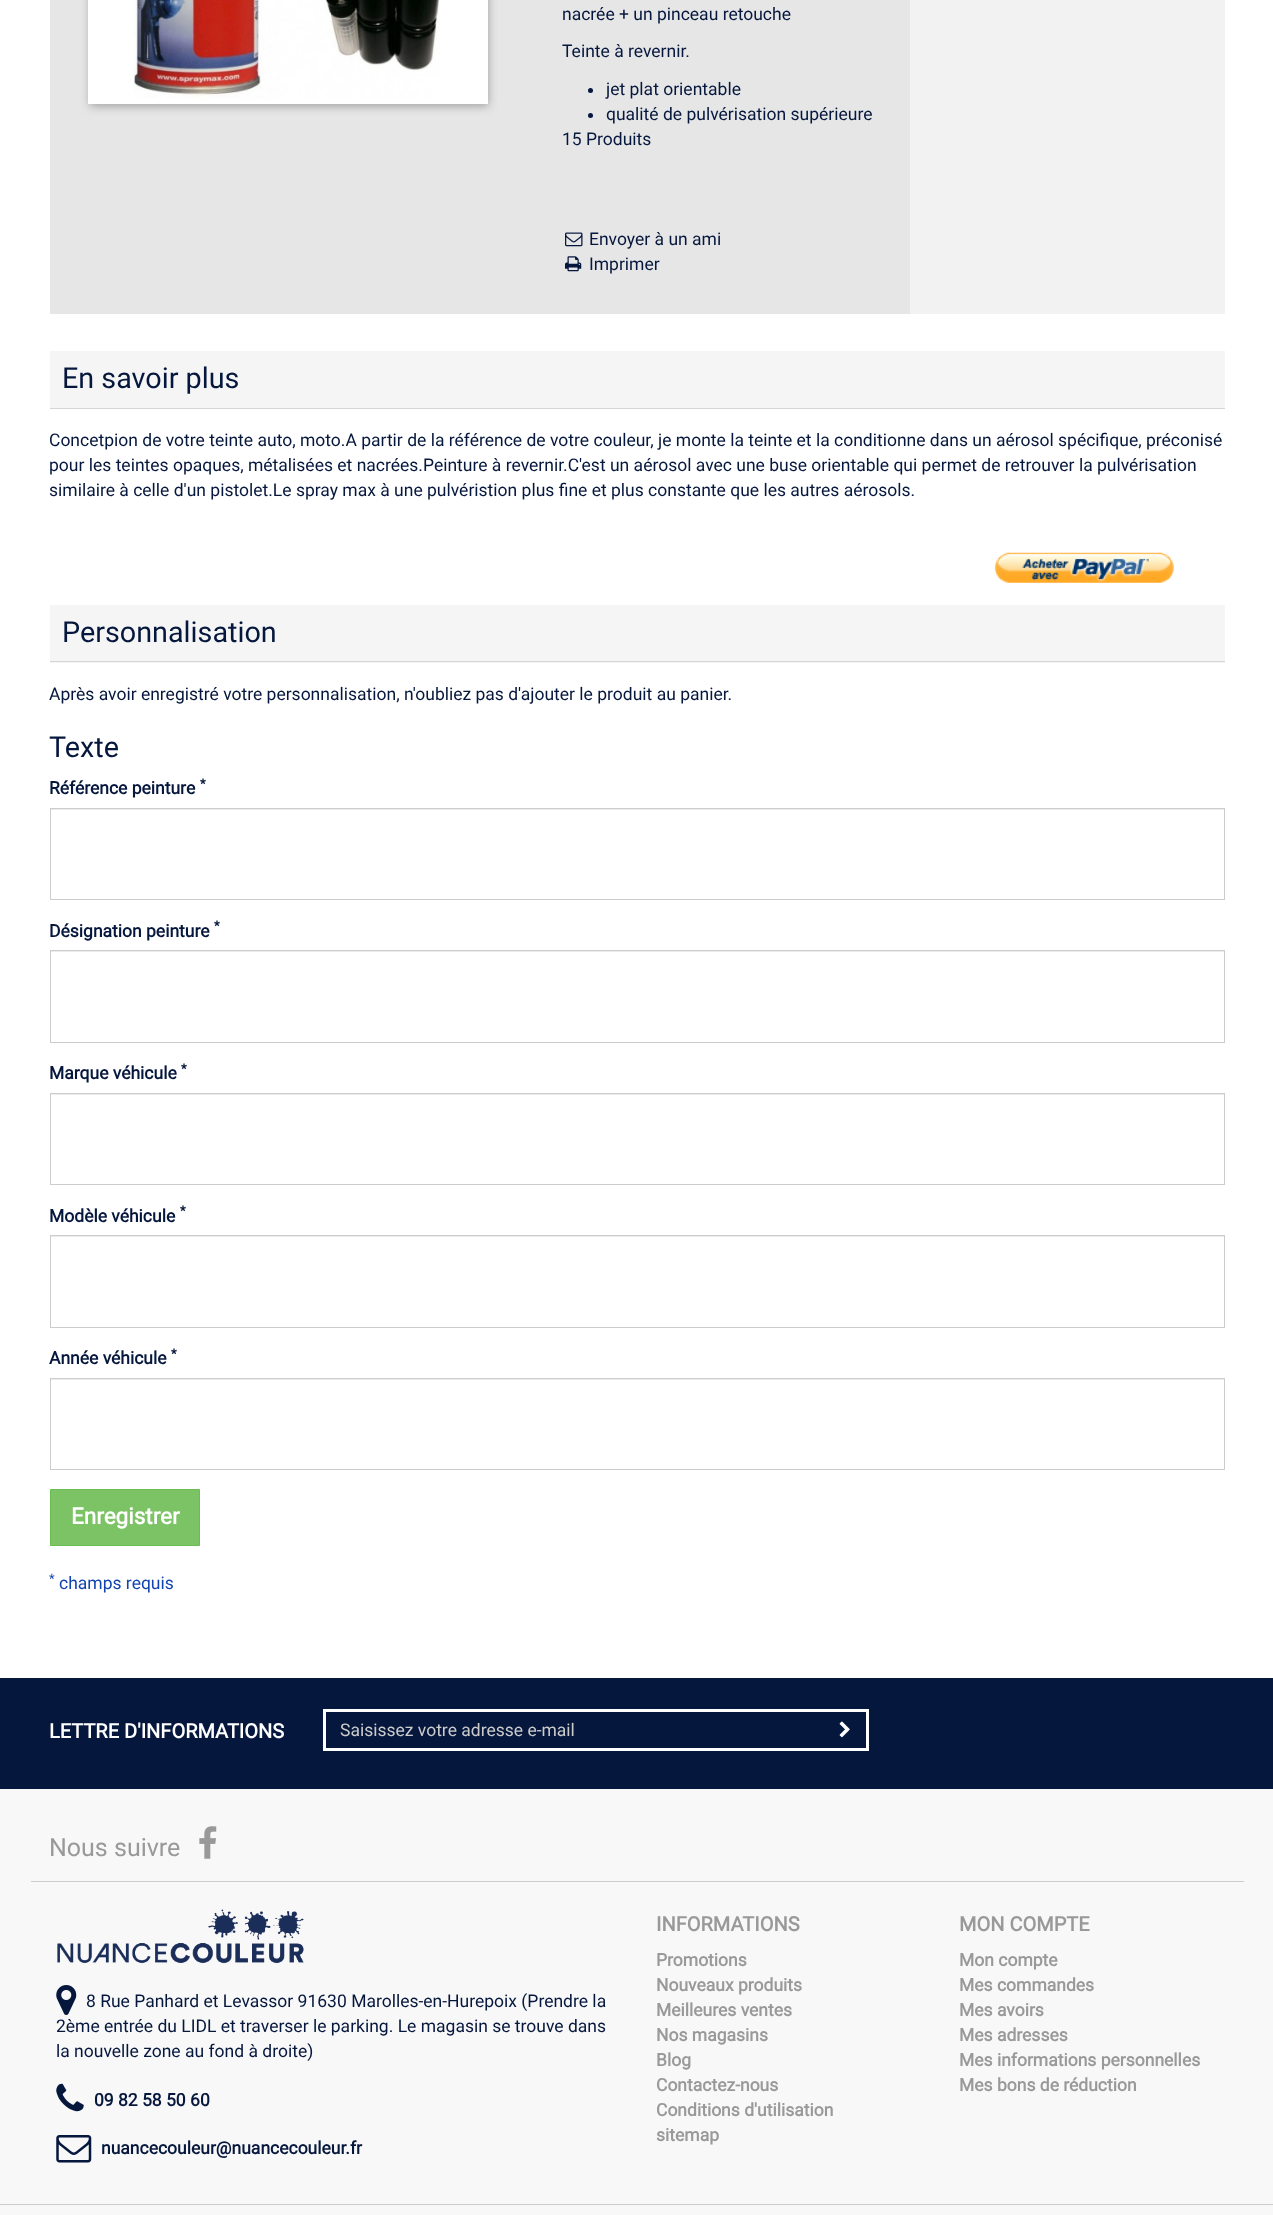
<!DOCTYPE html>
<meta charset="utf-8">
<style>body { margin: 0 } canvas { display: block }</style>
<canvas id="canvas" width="1273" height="2215"></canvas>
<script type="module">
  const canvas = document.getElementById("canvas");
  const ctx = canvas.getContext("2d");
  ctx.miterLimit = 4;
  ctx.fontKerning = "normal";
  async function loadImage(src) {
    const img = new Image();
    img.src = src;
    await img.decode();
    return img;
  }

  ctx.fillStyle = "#f8f8f8";
  ctx.fillRect(0, 0, 1273, 2215);
  ctx.fillStyle = "#ffffff";
  ctx.fillRect(0, 0, 1273, 1678);
  ctx.fillStyle = "#e6e6e6";
  ctx.fillRect(50, 0, 860, 314);
  ctx.fillStyle = "#9e9e9e";
  ctx.filter = "blur(5px)";
  ctx.beginPath();
  ctx.rect(90, -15, 398, 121);
  ctx.fill();
  ctx.filter = "none";
  ctx.fillStyle = "#ffffff";
  ctx.fillRect(88, 0, 400, 104);
  ctx.drawImage(await loadImage("img1.png"), 133, 0, 307, 99);
  ctx.fillStyle = "#f2f2f2";
  ctx.fillRect(910, 0, 315, 314);
  ctx.font = "17.5px Roboto";
  ctx.fillStyle = "#06173d";
  ctx.fillText("nacrée + un pinceau retouche", 562, 20);
  ctx.fillText("Teinte à revernir.", 562, 57);
  ctx.beginPath();
  ctx.arc(590.5, 90.5, 2.5, 0, Math.PI * 2);
  ctx.fill();
  ctx.fillText("jet plat orientable", 606, 95);
  ctx.beginPath();
  ctx.arc(590.5, 115.5, 2.5, 0, Math.PI * 2);
  ctx.fill();
  ctx.fillText("qualité de pulvérisation supérieure", 606, 120);
  ctx.fillText("15 Produits", 562, 145);
  ctx.drawImage(await loadImage("img2.png"), 565, 232, 18, 15);
  ctx.fillText("Envoyer à un ami", 589, 245);
  ctx.drawImage(await loadImage("img3.png"), 565, 256, 17, 16);
  ctx.fillText("Imprimer", 589, 270);
  ctx.fillStyle = "#f5f5f5";
  ctx.fillRect(50, 351, 1175, 57);
  ctx.fillStyle = "#d6d4d4";
  ctx.fillRect(50, 408, 1175, 1);
  ctx.font = "28.75px Roboto";
  ctx.fillStyle = "#06173d";
  ctx.fillText("En savoir plus", 62, 388);
  ctx.font = "17.5px Roboto";
  ctx.fillText("Concetpion de votre teinte auto, moto.A partir de la référence de votre couleur, je monte la teinte et la conditionne dans un aérosol spécifique, préconisé", 49, 446);
  ctx.fillText("pour les teintes opaques, métalisées et nacrées.Peinture à revernir.C'est un aérosol avec une buse orientable qui permet de retrouver la pulvérisation", 49, 471);
  ctx.fillText("similaire à celle d'un pistolet.Le spray max à une pulvéristion plus fine et plus constante que les autres aérosols.", 49, 496);
  ctx.drawImage(await loadImage("img4.png"), 994, 552, 180, 31);
  ctx.fillStyle = "#f5f5f5";
  ctx.fillRect(50, 605, 1175, 58);
  ctx.fillStyle = "#d6d4d4";
  ctx.fillRect(50, 661, 1175, 1);
  ctx.font = "28.75px Roboto";
  ctx.fillStyle = "#06173d";
  ctx.fillText("Personnalisation", 62, 642);
  ctx.font = "17.5px Roboto";
  ctx.fillText("Après avoir enregistré votre personnalisation, n'oubliez pas d'ajouter le produit au panier.", 49, 700);
  ctx.font = "28.75px Roboto";
  ctx.fillText("Texte", 49, 757);
  ctx.font = "bold 17.5px Roboto";
  ctx.fillText("Référence peinture", 49, 794);
  ctx.font = "bold 13px Roboto";
  ctx.fillText("*", 200, 788);
  ctx.fillStyle = "#ececec";
  ctx.fillRect(51, 809, 1173, 1);
  ctx.strokeStyle = "#cccccc";
  ctx.strokeRect(50.5, 808.5, 1174, 91);
  ctx.font = "bold 17.5px Roboto";
  ctx.fillStyle = "#06173d";
  ctx.fillText("Désignation peinture", 49, 937);
  ctx.font = "bold 13px Roboto";
  ctx.fillText("*", 214, 930);
  ctx.fillStyle = "#ececec";
  ctx.fillRect(51, 951, 1173, 1);
  ctx.strokeRect(50.5, 950.5, 1174, 92);
  ctx.font = "bold 17.5px Roboto";
  ctx.fillStyle = "#06173d";
  ctx.fillText("Marque véhicule", 49, 1079);
  ctx.font = "bold 13px Roboto";
  ctx.fillText("*", 181, 1073);
  ctx.fillStyle = "#ececec";
  ctx.fillRect(51, 1094, 1173, 1);
  ctx.strokeRect(50.5, 1093.5, 1174, 91);
  ctx.font = "bold 17.5px Roboto";
  ctx.fillStyle = "#06173d";
  ctx.fillText("Modèle véhicule", 49, 1222);
  ctx.font = "bold 13px Roboto";
  ctx.fillText("*", 180, 1215);
  ctx.fillStyle = "#ececec";
  ctx.fillRect(51, 1236, 1173, 1);
  ctx.strokeRect(50.5, 1235.5, 1174, 92);
  ctx.font = "bold 17.5px Roboto";
  ctx.fillStyle = "#06173d";
  ctx.fillText("Année véhicule", 49, 1364);
  ctx.font = "bold 13px Roboto";
  ctx.fillText("*", 171, 1358);
  ctx.fillStyle = "#ececec";
  ctx.fillRect(51, 1379, 1173, 1);
  ctx.strokeRect(50.5, 1378.5, 1174, 91);
  ctx.fillStyle = "#7bc364";
  ctx.beginPath();
  ctx.rect(50.5, 1489.5, 149, 56);
  ctx.fill();
  ctx.strokeStyle = "#6bbc52";
  ctx.stroke();
  ctx.font = "bold 22.5px Roboto";
  ctx.fillStyle = "#ffffff";
  ctx.fillText("Enregistrer", 71, 1524);
  ctx.font = "13px Roboto";
  ctx.fillStyle = "#1143b1";
  ctx.fillText("*", 49, 1583);
  ctx.font = "17.5px Roboto";
  ctx.fillText("champs requis", 59, 1589);
  ctx.fillStyle = "#06173d";
  ctx.fillRect(0, 1678, 1273, 111);
  ctx.font = "bold 20px Roboto";
  ctx.fillStyle = "#ffffff";
  ctx.fillText("LETTRE D'INFORMATIONS", 49, 1738);
  ctx.strokeStyle = "#ffffff";
  ctx.lineWidth = 3;
  ctx.strokeRect(324.5, 1710.5, 543, 39);
  ctx.font = "17.5px Roboto";
  ctx.fillStyle = "#cccccc";
  ctx.fillText("Saisissez votre adresse e-mail", 340, 1736);
  ctx.drawImage(await loadImage("img5.png"), 839, 1721, 11, 17);
  ctx.fillRect(31, 1881, 1213, 1);
  ctx.font = "25px Roboto";
  ctx.fillStyle = "#999999";
  ctx.fillText("Nous suivre", 49, 1856);
  ctx.drawImage(await loadImage("img6.png"), 199, 1826, 18, 33);
  ctx.drawImage(await loadImage("img7.png"), 57, 1909, 247, 55);
  ctx.drawImage(await loadImage("img8.png"), 56, 1985, 21, 30);
  ctx.font = "17.5px Roboto";
  ctx.fillStyle = "#06173d";
  ctx.fillText("8 Rue Panhard et Levassor 91630 Marolles-en-Hurepoix (Prendre la", 86, 2007);
  ctx.fillText("2ème entrée du LIDL et traverser le parking. Le magasin se trouve dans", 56, 2032);
  ctx.fillText("la nouvelle zone au fond à droite)", 56, 2057);
  ctx.drawImage(await loadImage("img9.png"), 56, 2083, 28, 29);
  ctx.font = "bold 17.5px Roboto";
  ctx.fillText("09 82 58 50 60", 94, 2106);
  ctx.drawImage(await loadImage("img10.png"), 56, 2135, 36, 28);
  ctx.fillText("nuancecouleur@nuancecouleur.fr", 101, 2154);
  ctx.font = "bold 20px Roboto";
  ctx.fillStyle = "#999999";
  ctx.fillText("INFORMATIONS", 656, 1931);
  ctx.font = "bold 17.5px Roboto";
  ctx.fillText("Promotions", 656, 1966);
  ctx.fillText("Nouveaux produits", 656, 1991);
  ctx.fillText("Meilleures ventes", 656, 2016);
  ctx.fillText("Nos magasins", 656, 2041);
  ctx.fillText("Blog", 656, 2066);
  ctx.fillText("Contactez-nous", 656, 2091);
  ctx.fillText("Conditions d'utilisation", 656, 2116);
  ctx.fillText("sitemap", 656, 2141);
  ctx.font = "bold 20px Roboto";
  ctx.fillText("MON COMPTE", 959, 1931);
  ctx.font = "bold 17.5px Roboto";
  ctx.fillText("Mon compte", 959, 1966);
  ctx.fillText("Mes commandes", 959, 1991);
  ctx.fillText("Mes avoirs", 959, 2016);
  ctx.fillText("Mes adresses", 959, 2041);
  ctx.fillText("Mes informations personnelles", 959, 2066);
  ctx.fillText("Mes bons de réduction", 959, 2091);
  ctx.fillStyle = "#cccccc";
  ctx.fillRect(0, 2204, 1273, 1);
</script>
